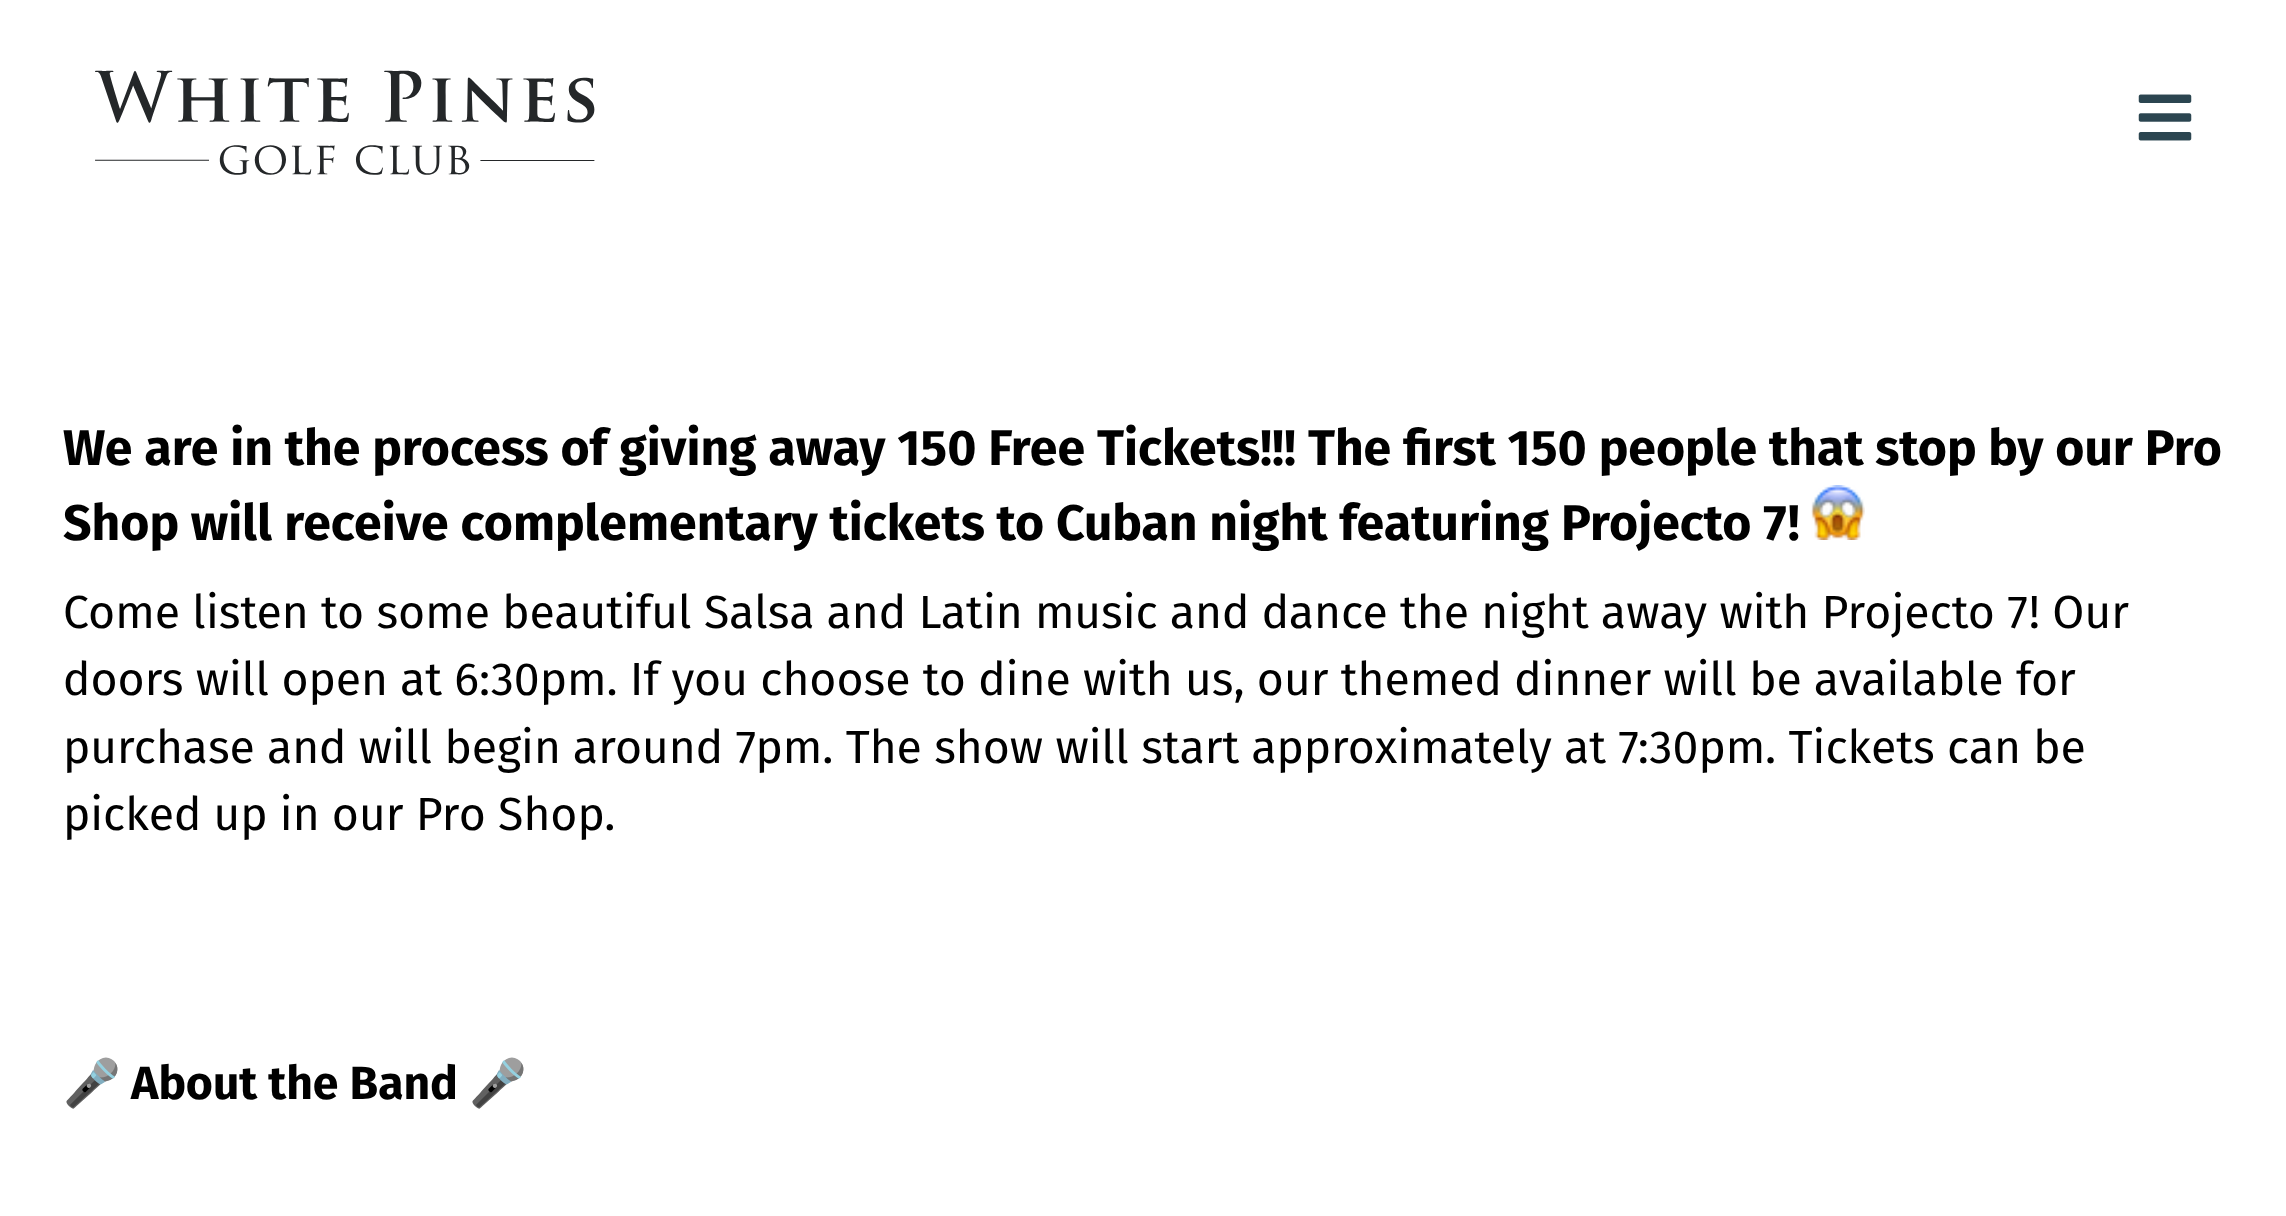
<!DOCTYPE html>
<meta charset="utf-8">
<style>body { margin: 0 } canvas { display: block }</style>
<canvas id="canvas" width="2286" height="1216"></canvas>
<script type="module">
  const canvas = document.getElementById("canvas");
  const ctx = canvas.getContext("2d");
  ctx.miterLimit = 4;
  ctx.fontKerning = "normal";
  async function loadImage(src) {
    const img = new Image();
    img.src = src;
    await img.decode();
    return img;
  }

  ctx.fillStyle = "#ffffff";
  ctx.fillRect(0, 0, 2286, 1216);
  ctx.drawImage(await loadImage("img1.png"), 95, 70, 500, 105);
  ctx.drawImage(await loadImage("img2.png"), 2138, 94, 54, 47);
  ctx.font = "bold 50px Fira Sans";
  ctx.fillStyle = "#000000";
  ctx.fillText("We are in the process of giving away 150 Free Tickets!!! The first 150 people that stop by our Pro", 63, 465);
  ctx.fillText("Shop will receive complementary tickets to Cuban night featuring Projecto 7!", 63, 540);
  ctx.drawImage(await loadImage("img3.png"), 1811, 485, 54, 55);
  ctx.font = "46.45px Fira Sans";
  ctx.fillText("Come listen to some beautiful Salsa and Latin music and dance the night away with Projecto 7! Our", 63, 628);
  ctx.fillText("doors will open at 6:30pm. If you choose to dine with us, our themed dinner will be available for", 63, 695);
  ctx.fillText("purchase and will begin around 7pm. The show will start approximately at 7:30pm. Tickets can be", 63, 763);
  ctx.fillText("picked up in our Pro Shop.", 63, 830);
  ctx.font = "bold 46.45px Noto Color Emoji";
  ctx.fillText("🎤", 63, 1099);
  ctx.font = "bold 46.45px Fira Sans";
  ctx.fillText("About the Band", 131, 1099);
  ctx.font = "bold 46.45px Noto Color Emoji";
  ctx.fillText("🎤", 469, 1099);
</script>
